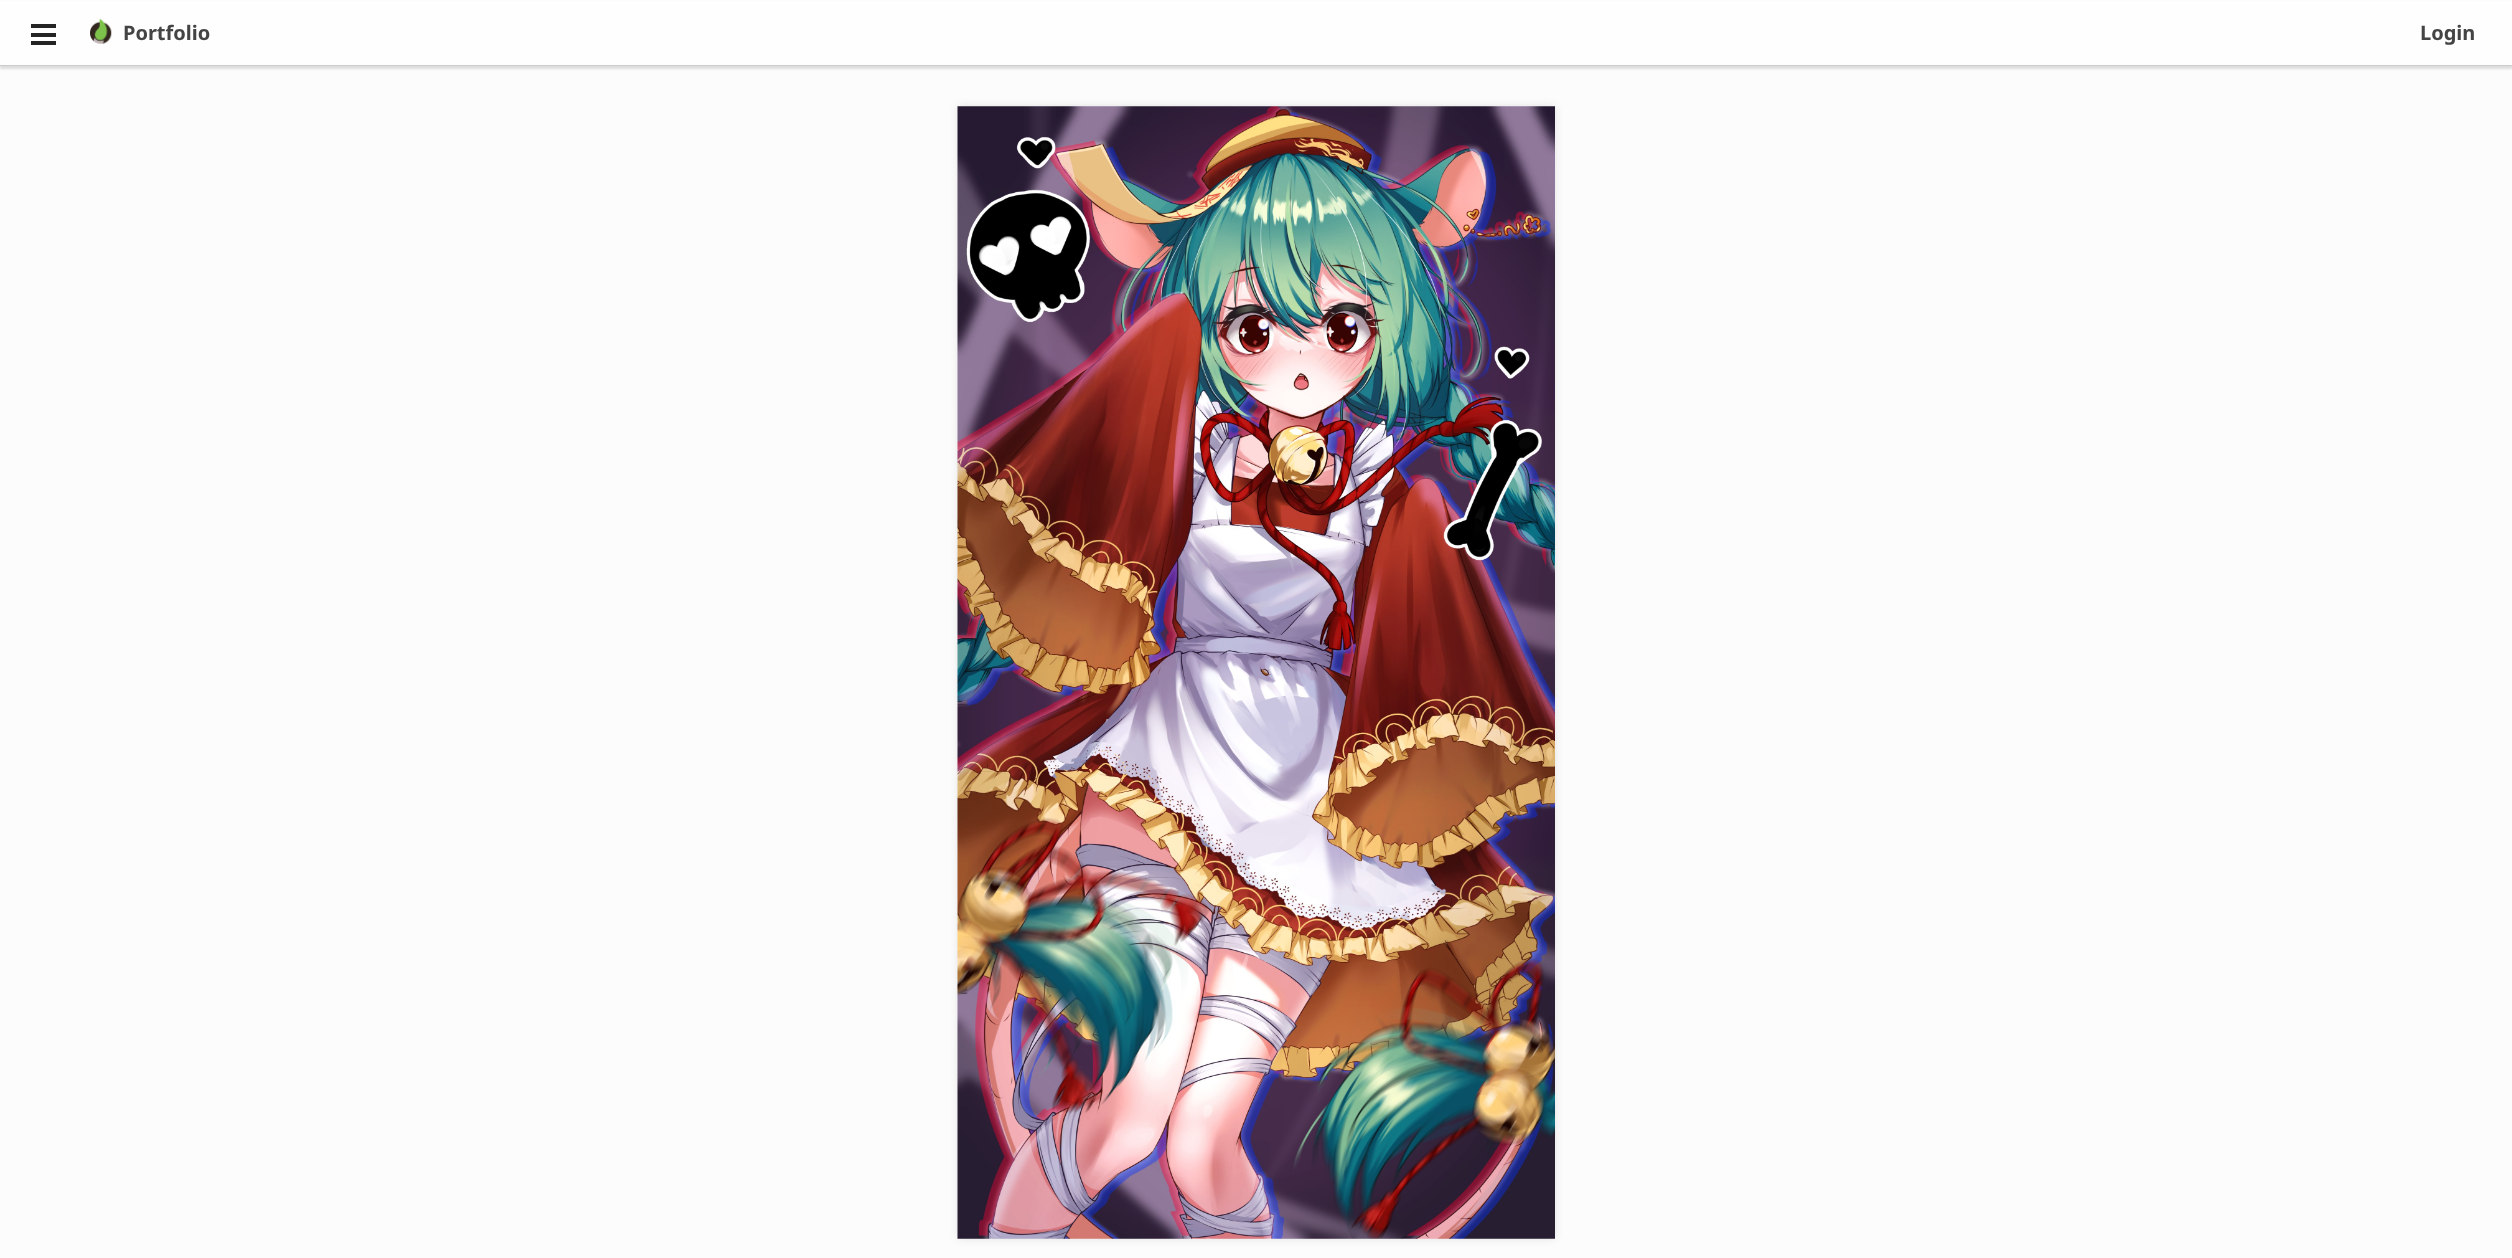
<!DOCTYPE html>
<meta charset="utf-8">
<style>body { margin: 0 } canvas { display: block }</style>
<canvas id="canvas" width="2512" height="1258"></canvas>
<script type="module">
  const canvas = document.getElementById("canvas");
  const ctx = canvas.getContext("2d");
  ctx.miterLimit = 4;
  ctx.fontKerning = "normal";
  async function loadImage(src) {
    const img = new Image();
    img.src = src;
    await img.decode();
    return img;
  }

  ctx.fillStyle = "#fcfcfc";
  ctx.fillRect(0, 0, 2512, 1258);
  ctx.fillStyle = "#dddddd";
  ctx.filter = "blur(1px)";
  ctx.beginPath();
  ctx.rect(0, 3, 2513, 66);
  ctx.fill();
  ctx.filter = "none";
  ctx.fillStyle = "#fefefe";
  ctx.fillRect(0, 1, 2512, 64);
  ctx.fillStyle = "#cccccc";
  ctx.fillRect(0, 65, 2512, 1);
  ctx.fillStyle = "#242424";
  ctx.fillRect(31, 24, 25, 4);
  ctx.fillRect(31, 33, 25, 4);
  ctx.fillRect(31, 41, 25, 4);
  ctx.drawImage(await loadImage("img1.png"), 90, 18, 22, 26);
  ctx.font = "bold 20px Noto Sans";
  ctx.fillStyle = "#444444";
  ctx.fillText("Portfolio", 123, 40);
  ctx.fillText("Login", 2420, 40);
  ctx.fillStyle = "rgba(0, 0, 0, 0.1)";
  ctx.filter = "blur(4px)";
  ctx.beginPath();
  ctx.rect(958, 106, 597, 1133);
  ctx.fill();
  ctx.filter = "none";
  ctx.drawImage(await loadImage("img2.png"), 957, 106, 598, 1133);
</script>
